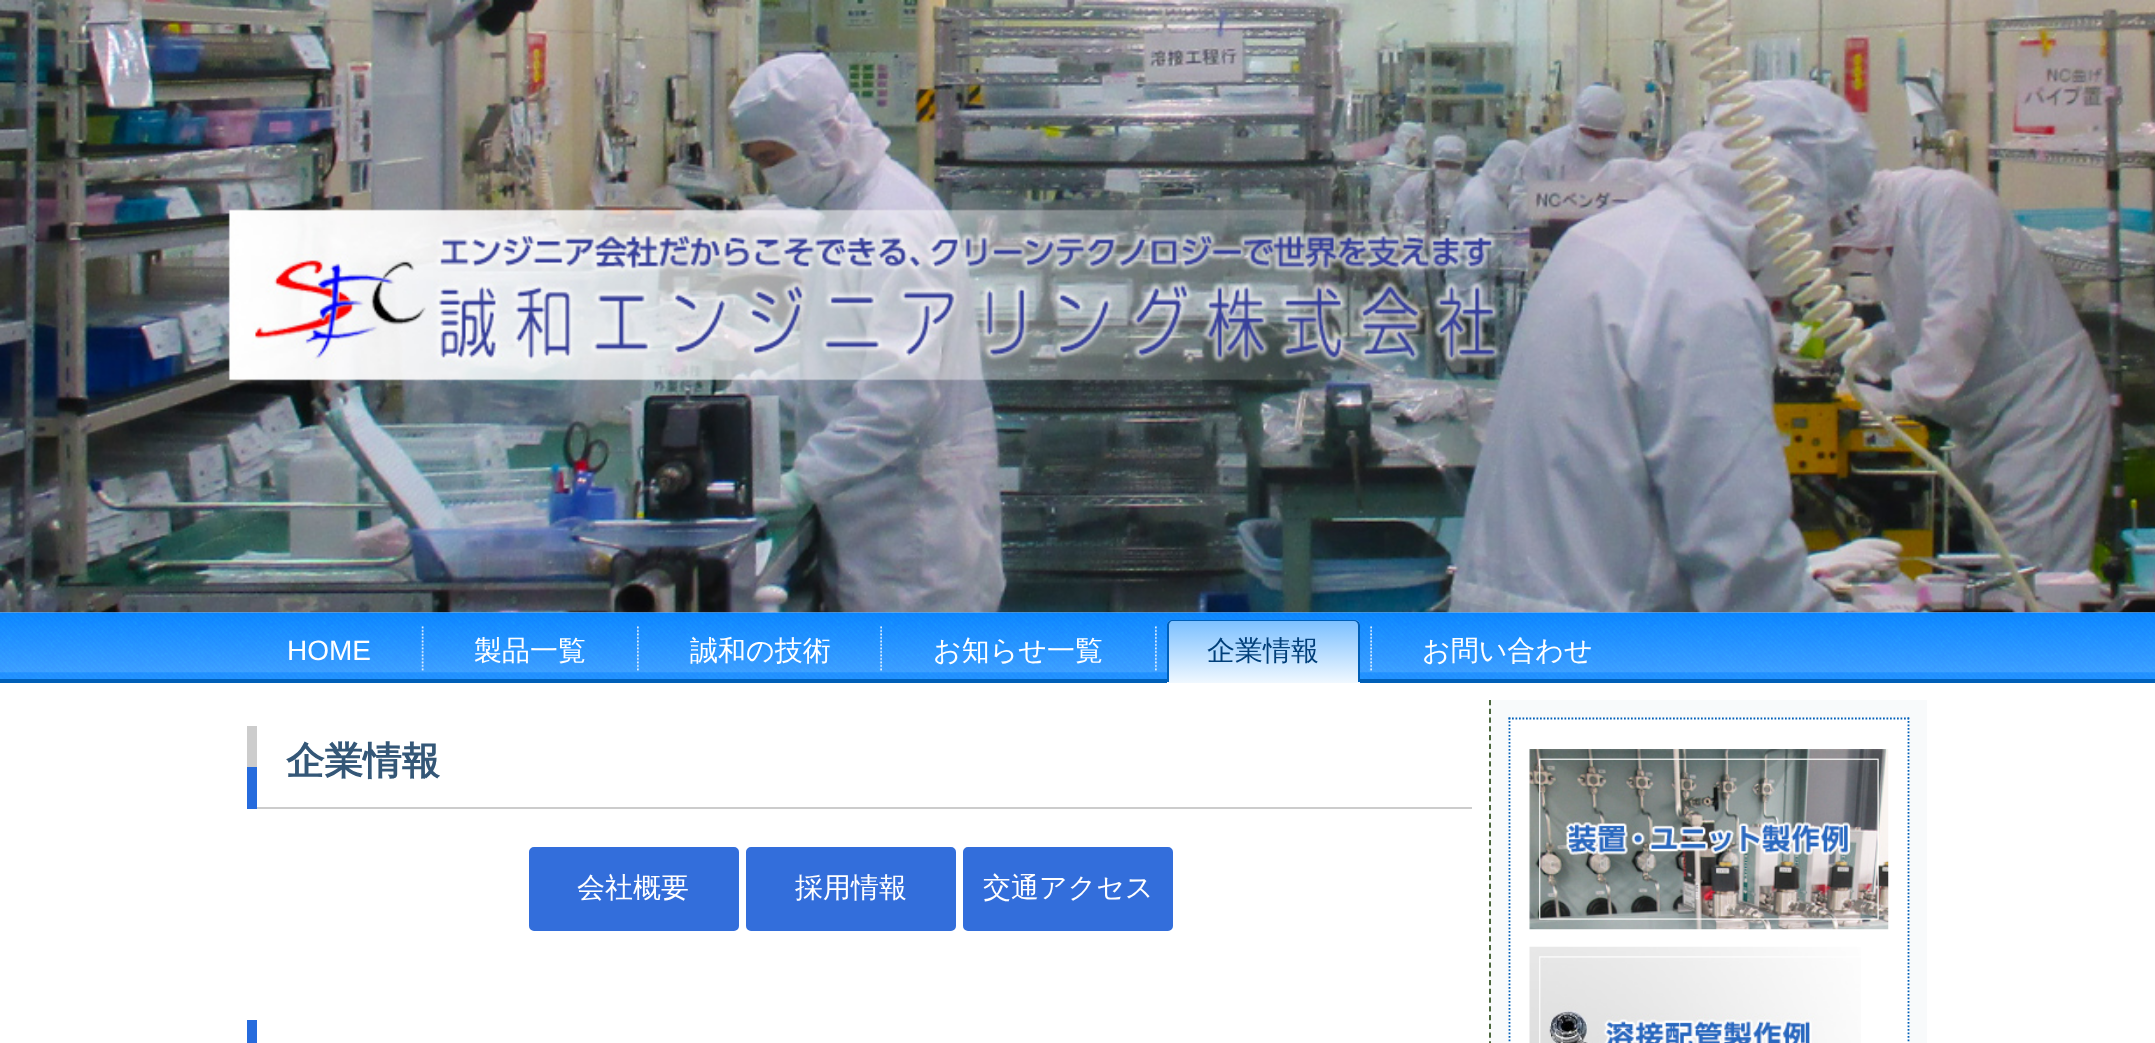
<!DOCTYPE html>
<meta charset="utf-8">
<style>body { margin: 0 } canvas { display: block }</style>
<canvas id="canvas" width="2155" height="1043"></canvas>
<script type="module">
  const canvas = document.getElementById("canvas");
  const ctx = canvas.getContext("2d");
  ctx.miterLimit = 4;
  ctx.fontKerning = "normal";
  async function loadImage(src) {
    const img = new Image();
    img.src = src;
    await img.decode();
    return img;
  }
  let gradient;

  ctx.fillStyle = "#ffffff";
  ctx.fillRect(0, 0, 2155, 1043);
  ctx.drawImage(await loadImage("img1.png"), 0, 0, 2155, 613);
  ctx.drawImage(await loadImage("img2.png"), 0, 612, 2155, 67);
  ctx.fillStyle = "#005fb8";
  ctx.fillRect(0, 679, 2155, 4);
  ctx.font = "28px Liberation Sans";
  ctx.fillStyle = "#ffffff";
  ctx.fillText("HOME", 287, 660);
  ctx.drawImage(await loadImage("img3.png"), 421, 626, 3, 45);
  ctx.font = "500 28px WenQuanYi Zen Hei";
  ctx.fillText("製品一覧", 474, 660);
  ctx.drawImage(await loadImage("img4.png"), 637, 626, 2, 45);
  ctx.fillText("誠和の技術", 690, 660);
  ctx.drawImage(await loadImage("img5.png"), 880, 626, 2, 45);
  ctx.fillText("お知らせ一覧", 933, 660);
  ctx.drawImage(await loadImage("img6.png"), 1155, 626, 2, 45);
  gradient = ctx.createLinearGradient(1264, 620, 1264, 683);
  gradient.addColorStop(0, "#7abfff");
  gradient.addColorStop(1, "#f0f8ff");
  ctx.fillStyle = gradient;
  ctx.beginPath();
  ctx.roundRect(1167, 620, 193, 63, [5, 5, 0, 0]);
  ctx.fill();
  ctx.fillStyle = "#005fb8";
  ctx.beginPath();
  ctx.moveTo(1172, 620);
  ctx.lineTo(1354, 620);
  ctx.bezierCurveTo(1357, 620, 1360, 622, 1360, 625);
  ctx.lineTo(1360, 682);
  ctx.lineTo(1167, 682);
  ctx.lineTo(1167, 625);
  ctx.bezierCurveTo(1167, 622, 1170, 620, 1172, 620);
  ctx.closePath();
  ctx.moveTo(1172, 621);
  ctx.lineTo(1354, 621);
  ctx.bezierCurveTo(1356, 621, 1358, 623, 1358, 625);
  ctx.lineTo(1358, 682);
  ctx.lineTo(1169, 682);
  ctx.lineTo(1169, 625);
  ctx.bezierCurveTo(1169, 623, 1171, 621, 1172, 621);
  ctx.closePath();
  ctx.fill("evenodd");
  ctx.fillStyle = "#003f7a";
  ctx.fillText("企業情報", 1207, 660);
  ctx.drawImage(await loadImage("img7.png"), 1370, 626, 2, 45);
  ctx.fillStyle = "#ffffff";
  ctx.fillText("お問い合わせ", 1422, 660);
  ctx.fillStyle = "#cccccc";
  ctx.fillRect(247, 726, 10, 41);
  ctx.font = "bold 38.5px WenQuanYi Zen Hei";
  ctx.fillStyle = "#345777";
  ctx.fillText("企業情報", 286, 774);
  ctx.fillStyle = "#266bdd";
  ctx.fillRect(247, 767, 10, 42);
  ctx.fillStyle = "#cccccc";
  ctx.fillRect(257, 807, 1215, 2);
  ctx.fillStyle = "#336edb";
  ctx.beginPath();
  ctx.roundRect(531, 849, 206, 80, 3);
  ctx.fill();
  ctx.strokeStyle = "#336edb";
  ctx.lineWidth = 4;
  ctx.stroke();
  ctx.font = "500 28px WenQuanYi Zen Hei";
  ctx.fillStyle = "#ffffff";
  ctx.fillText("会社概要", 577, 897);
  ctx.fillStyle = "#336edb";
  ctx.beginPath();
  ctx.roundRect(748, 849, 206, 80, 3);
  ctx.fill();
  ctx.stroke();
  ctx.fillStyle = "#ffffff";
  ctx.fillText("採用情報", 795, 897);
  ctx.fillStyle = "#336edb";
  ctx.beginPath();
  ctx.roundRect(965, 849, 206, 80, 3);
  ctx.fill();
  ctx.stroke();
  ctx.fillStyle = "#ffffff";
  ctx.fillText("交通アクセス", 983, 897);
  ctx.fillStyle = "#266bdd";
  ctx.fillRect(247, 1020, 10, 23);
  ctx.fillStyle = "#f8fafb";
  ctx.fillRect(1489, 700, 438, 343);
  ctx.beginPath();
  ctx.moveTo(1490, 700);
  ctx.lineTo(1490, 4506);
  ctx.strokeStyle = "#395728";
  ctx.lineWidth = 1.8;
  ctx.setLineDash([5.25, 3.5]);
  ctx.stroke();
  ctx.fillStyle = "#ffffff";
  ctx.fillRect(1509, 718, 400, 325);
  ctx.beginPath();
  ctx.moveTo(1508.5, 718.5);
  ctx.lineTo(1909, 718.5);
  ctx.strokeStyle = "#005fb8";
  ctx.setLineDash([1.75, 1.75]);
  ctx.stroke();
  ctx.beginPath();
  ctx.moveTo(1908.5, 717.5);
  ctx.lineTo(1908.5, 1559);
  ctx.stroke();
  ctx.beginPath();
  ctx.moveTo(1509.5, 717.5);
  ctx.lineTo(1509.5, 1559);
  ctx.stroke();
  ctx.drawImage(await loadImage("img8.png"), 1529, 749, 360, 181);
  ctx.drawImage(await loadImage("img9.png"), 1529, 946, 332, 97);
</script>
